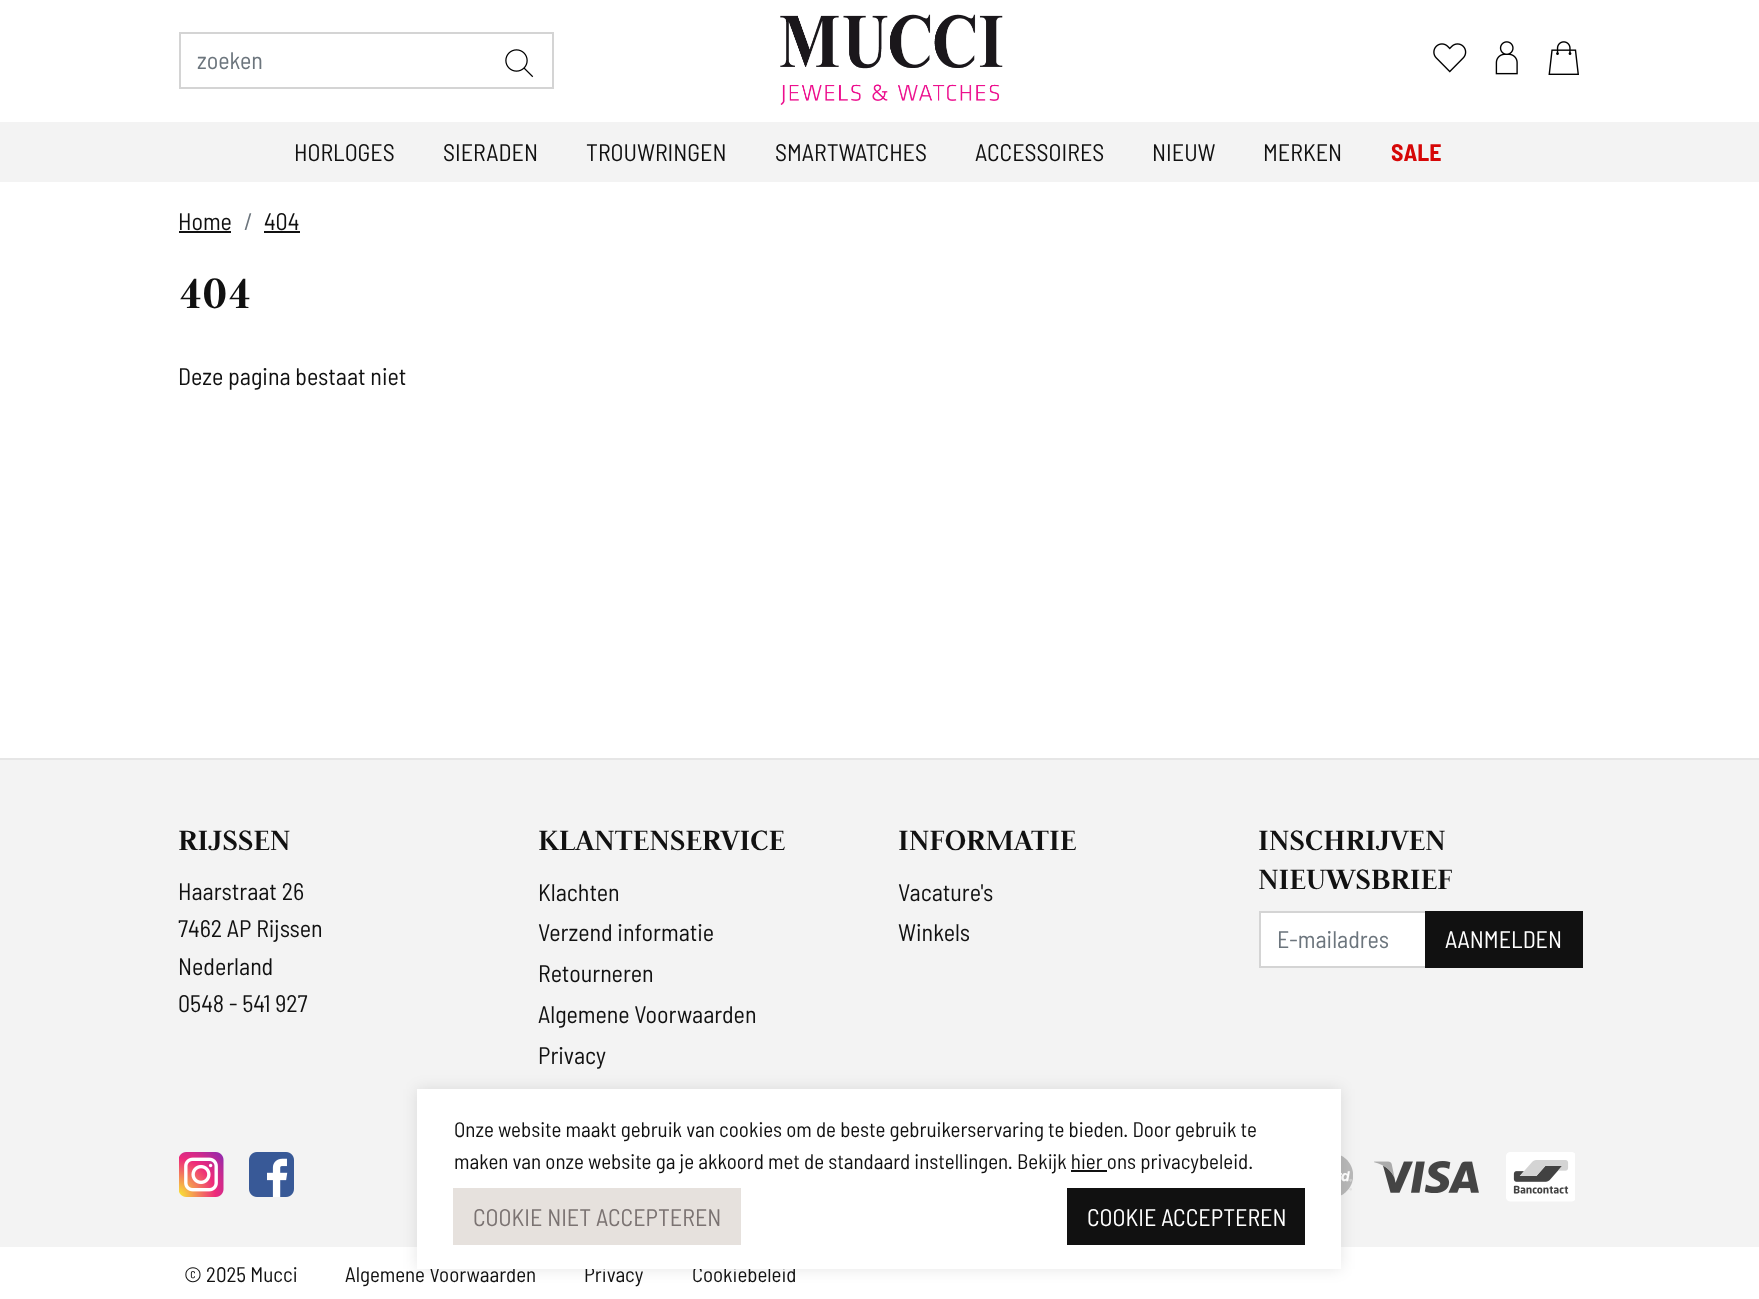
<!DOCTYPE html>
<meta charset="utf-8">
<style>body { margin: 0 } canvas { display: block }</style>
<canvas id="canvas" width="1759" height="1299"></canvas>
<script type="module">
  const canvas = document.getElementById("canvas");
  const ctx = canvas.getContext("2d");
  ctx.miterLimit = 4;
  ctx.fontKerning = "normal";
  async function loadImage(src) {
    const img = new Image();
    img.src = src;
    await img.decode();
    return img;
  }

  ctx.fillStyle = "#ffffff";
  ctx.fillRect(0, 0, 1759, 1299);
  ctx.strokeStyle = "#d4d4d4";
  ctx.lineWidth = 2;
  ctx.strokeRect(180, 33, 307, 55);
  ctx.font = "24px Barlow Semi Condensed";
  ctx.fillStyle = "#6c757d";
  ctx.fillText("zoeken", 197, 69);
  ctx.fillStyle = "#ffffff";
  ctx.fillRect(486, 34, 2, 53);
  ctx.fillStyle = "#d4d4d4";
  ctx.fillRect(486, 32, 68, 2);
  ctx.fillRect(552, 32, 2, 57);
  ctx.fillRect(486, 87, 68, 2);
  ctx.drawImage(await loadImage("img1.png"), 505, 49, 29, 29);
  ctx.drawImage(await loadImage("img2.png"), 780, 14, 223, 91);
  ctx.drawImage(await loadImage("img3.png"), 1433, 43, 34, 30);
  ctx.drawImage(await loadImage("img4.png"), 1495, 41, 23, 34);
  ctx.drawImage(await loadImage("img5.png"), 1548, 41, 31, 34);
  ctx.fillStyle = "#f3f3f3";
  ctx.fillRect(0, 122, 1759, 60);
  ctx.fillStyle = "#111111";
  ctx.fillText("HORLOGES", 294, 161);
  ctx.fillText("SIERADEN", 443, 161);
  ctx.fillText("TROUWRINGEN", 586, 161);
  ctx.fillText("SMARTWATCHES", 775, 161);
  ctx.fillText("ACCESSOIRES", 975, 161);
  ctx.fillText("NIEUW", 1152, 161);
  ctx.fillText("MERKEN", 1263, 161);
  ctx.font = "bold 24px Barlow Semi Condensed";
  ctx.fillStyle = "#d60707";
  ctx.fillText("SALE", 1391, 161);
  ctx.font = "24px Barlow Semi Condensed";
  ctx.fillStyle = "#111111";
  ctx.fillText("Home", 178, 230);
  ctx.fillRect(179, 231, 52, 2);
  ctx.fillStyle = "#6c757d";
  ctx.fillText("/", 244, 230);
  ctx.fillStyle = "#111111";
  ctx.fillText("404", 264, 230);
  ctx.fillRect(264, 231, 36, 2);
  ctx.font = "bold 50px Judson";
  ctx.fillText("404", 178, 308);
  ctx.font = "24px Barlow Semi Condensed";
  ctx.fillText("Deze pagina bestaat niet", 178, 385);
  ctx.fillStyle = "#f3f3f3";
  ctx.fillRect(0, 760, 1759, 487);
  ctx.fillStyle = "#e6e6e6";
  ctx.fillRect(0, 758, 1759, 2);
  ctx.font = "bold 33px Judson";
  ctx.fillStyle = "#111111";
  ctx.fillText("RIJSSEN", 178, 850);
  ctx.font = "24px Barlow Semi Condensed";
  ctx.fillText("Haarstraat 26", 178, 900);
  ctx.fillText("7462 AP Rijssen", 178, 937);
  ctx.fillText("Nederland", 178, 975);
  ctx.fillText("0548 - 541 927", 178, 1012);
  ctx.font = "bold 33px Judson";
  ctx.fillText("KLANTENSERVICE", 538, 850);
  ctx.font = "24px Barlow Semi Condensed";
  ctx.fillText("Klachten", 538, 901);
  ctx.fillText("Verzend informatie", 538, 941);
  ctx.fillText("Retourneren", 538, 982);
  ctx.fillText("Algemene Voorwaarden", 538, 1023);
  ctx.fillText("Privacy", 538, 1064);
  ctx.font = "bold 33px Judson";
  ctx.fillText("INFORMATIE", 898, 850);
  ctx.font = "24px Barlow Semi Condensed";
  ctx.fillText("Vacature's", 898, 901);
  ctx.fillText("Winkels", 898, 941);
  ctx.font = "bold 33px Judson";
  ctx.fillText("INSCHRIJVEN", 1258, 850);
  ctx.fillText("NIEUWSBRIEF", 1258, 889);
  ctx.fillStyle = "#ffffff";
  ctx.beginPath();
  ctx.rect(1260, 912, 166, 55);
  ctx.fill();
  ctx.stroke();
  ctx.font = "24px Barlow Semi Condensed";
  ctx.fillStyle = "#6c757d";
  ctx.fillText("E-mailadres", 1277, 948);
  ctx.fillStyle = "#111111";
  ctx.fillRect(1425, 911, 158, 57);
  ctx.fillStyle = "#ffffff";
  ctx.fillText("AANMELDEN", 1445, 948);
  ctx.drawImage(await loadImage("img6.png"), 179, 1152, 45, 45);
  ctx.drawImage(await loadImage("img7.png"), 249, 1152, 45, 45);
  ctx.drawImage(await loadImage("img8.png"), 1341, 1155, 12, 41);
  ctx.drawImage(await loadImage("img9.png"), 1374, 1161, 105, 32);
  ctx.drawImage(await loadImage("img10.png"), 1506, 1152, 69, 50);
  ctx.fillStyle = "rgba(0, 0, 0, 0.1)";
  ctx.filter = "blur(7.5px)";
  ctx.beginPath();
  ctx.rect(417, 1089, 924, 180);
  ctx.fill();
  ctx.filter = "none";
  ctx.font = "21px Barlow Semi Condensed";
  ctx.fillStyle = "#111111";
  ctx.fillText("Algemene Voorwaarden", 345, 1282);
  ctx.fillText("Privacy", 584, 1282);
  ctx.fillText("Cookiebeleid", 692, 1282);
  ctx.fillStyle = "#ffffff";
  ctx.fillRect(417, 1089, 924, 180);
  ctx.fillStyle = "#111111";
  ctx.fillText("Onze website maakt gebruik van cookies om de beste gebruikerservaring te bieden. Door gebruik te", 454, 1137);
  ctx.fillText("maken van onze website ga je akkoord met de standaard instellingen. Bekijk hier ons privacybeleid.", 454, 1169);
  ctx.fillRect(1071, 1170, 36, 2);
  ctx.fillStyle = "#e6e1dd";
  ctx.fillRect(453, 1188, 288, 57);
  ctx.font = "24px Barlow Semi Condensed";
  ctx.fillStyle = "#7b7372";
  ctx.fillText("COOKIE NIET ACCEPTEREN", 473, 1226);
  ctx.fillStyle = "#111111";
  ctx.fillRect(1067, 1188, 238, 57);
  ctx.fillStyle = "#ffffff";
  ctx.fillText("COOKIE ACCEPTEREN", 1087, 1226);
  ctx.font = "21px Barlow Semi Condensed";
  ctx.fillStyle = "#111111";
  ctx.fillText("© 2025 Mucci", 184, 1282);
</script>
